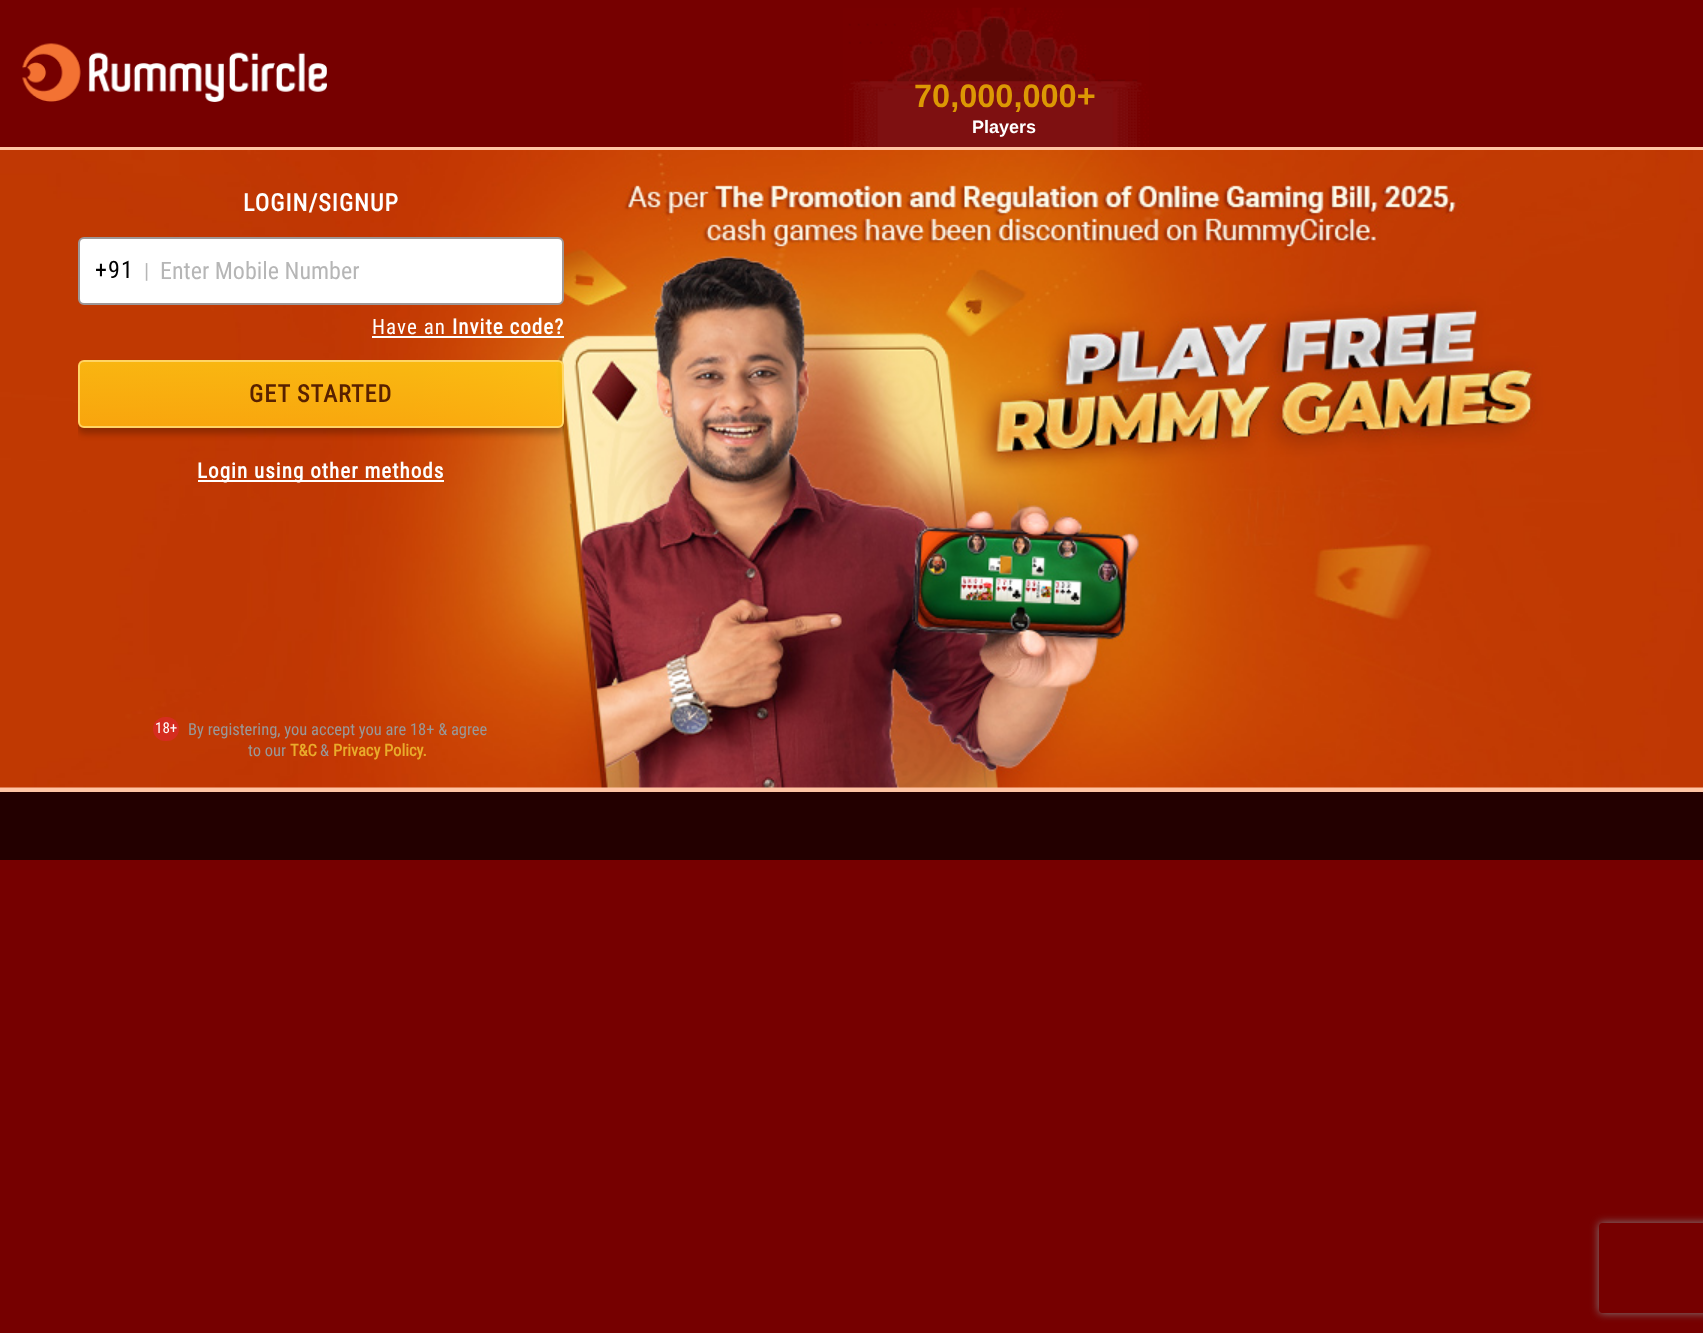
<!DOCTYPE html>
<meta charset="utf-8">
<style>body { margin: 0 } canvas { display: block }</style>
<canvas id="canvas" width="1703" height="1333"></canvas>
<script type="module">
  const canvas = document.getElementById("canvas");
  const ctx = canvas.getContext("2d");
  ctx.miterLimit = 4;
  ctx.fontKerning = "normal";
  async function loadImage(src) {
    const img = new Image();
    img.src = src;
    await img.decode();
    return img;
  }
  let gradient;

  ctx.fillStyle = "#760000";
  ctx.fillRect(0, 0, 1703, 1333);
  ctx.fillStyle = "#ffc4a4";
  ctx.fillRect(0, 147, 1703, 3);
  ctx.drawImage(await loadImage("img1.png"), 22, 43, 305, 59);
  ctx.drawImage(await loadImage("img2.png"), 843, 7, 306, 140);
  ctx.font = "bold 32.5px Liberation Sans";
  ctx.fillStyle = "#dc9804";
  ctx.fillText("70,000,000+", 914, 107);
  ctx.font = "bold 18px Liberation Sans";
  ctx.fillStyle = "#ffffff";
  ctx.fillText("Players", 972, 133);
  ctx.fillStyle = "#ffc4a4";
  ctx.fillRect(0, 787, 1703, 5);
  ctx.drawImage(await loadImage("img3.png"), 0, 150, 1703, 638);
  ctx.letterSpacing = "1.05px";
  ctx.font = "bold 24px Roboto Condensed";
  ctx.fillStyle = "#ffffff";
  ctx.fillText("LOGIN/SIGNUP", 243, 211);
  ctx.beginPath();
  ctx.roundRect(79, 238, 484, 66, 5);
  ctx.fill();
  ctx.strokeStyle = "#9e9797";
  ctx.lineWidth = 2;
  ctx.stroke();
  ctx.font = "24px Roboto Condensed";
  ctx.fillStyle = "#000000";
  ctx.fillText("+91", 95, 278);
  ctx.font = "21px Roboto Condensed";
  ctx.fillStyle = "#b6b6b6";
  ctx.fillText("|", 144, 278);
  ctx.letterSpacing = "0px";
  ctx.font = "24px Roboto Condensed";
  ctx.fillText("Enter Mobile Number", 160, 279);
  ctx.letterSpacing = "1.05px";
  ctx.font = "21px Roboto Condensed";
  ctx.fillStyle = "#ffffff";
  ctx.fillText("Have an", 372, 334);
  ctx.fillRect(372, 336, 192, 2);
  ctx.font = "bold 21px Roboto Condensed";
  ctx.fillText("Invite code?", 452, 334);
  ctx.save();
  ctx.beginPath();
  ctx.rect(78, 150, 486, 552);
  ctx.clip();
  ctx.beginPath();
  ctx.moveTo(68, 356);
  ctx.lineTo(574, 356);
  ctx.lineTo(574, 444);
  ctx.lineTo(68, 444);
  ctx.closePath();
  ctx.moveTo(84, 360);
  ctx.lineTo(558, 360);
  ctx.bezierCurveTo(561.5, 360, 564, 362.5, 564, 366);
  ctx.lineTo(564, 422);
  ctx.bezierCurveTo(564, 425.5, 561.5, 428, 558, 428);
  ctx.lineTo(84, 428);
  ctx.bezierCurveTo(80.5, 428, 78, 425.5, 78, 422);
  ctx.lineTo(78, 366);
  ctx.bezierCurveTo(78, 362.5, 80.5, 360, 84, 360);
  ctx.closePath();
  ctx.clip("evenodd");
  ctx.fillStyle = "rgba(0, 0, 0, 0.25)";
  ctx.filter = "blur(3px)";
  ctx.beginPath();
  ctx.roundRect(78, 366, 486, 68, 6);
  ctx.fill();
  ctx.filter = "none";
  ctx.restore();
  ctx.save();
  ctx.beginPath();
  ctx.roundRect(78, 360, 486, 68, 6);
  ctx.clip();
  gradient = ctx.createLinearGradient(-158, 222, -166, 434);
  gradient.addColorStop(0, "#f9ca16");
  gradient.addColorStop(1, "#f99509");
  ctx.fillStyle = gradient;
  ctx.fillRect(78, 361, 2, 1);
  ctx.restore();
  gradient = ctx.createLinearGradient(325, 286, 317, 498);
  gradient.addColorStop(0, "rgba(255, 218, 24, 0.9)");
  gradient.addColorStop(1, "rgba(255, 159, 10, 0.9)");
  ctx.fillStyle = gradient;
  ctx.fillRect(80, 362, 483, 64);
  ctx.save();
  ctx.beginPath();
  ctx.roundRect(78, 360, 486, 68, 6);
  ctx.clip();
  gradient = ctx.createLinearGradient(-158, 351, -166, 563);
  gradient.addColorStop(0, "#f5c916");
  gradient.addColorStop(1, "#f59409");
  ctx.fillStyle = gradient;
  ctx.fillRect(78, 426, 2, 1);
  ctx.restore();
  ctx.beginPath();
  ctx.roundRect(79, 361, 484, 66, 5);
  ctx.strokeStyle = "#ffd565";
  ctx.stroke();
  ctx.font = "bold 24px Roboto Condensed";
  ctx.fillStyle = "#582100";
  ctx.fillText("GET STARTED", 249, 402);
  ctx.fillStyle = "#ffffff";
  ctx.fillRect(198, 480, 246, 2);
  ctx.font = "bold 21px Roboto Condensed";
  ctx.fillText("Login using other methods", 197, 478);
  ctx.fillStyle = "#d52d1f";
  ctx.beginPath();
  ctx.roundRect(153, 717, 26, 24, 12);
  ctx.fill();
  ctx.letterSpacing = "0px";
  ctx.font = "15px Roboto Condensed";
  ctx.fillStyle = "#ffffff";
  ctx.fillText("18+", 155, 733);
  ctx.font = "16.5px Roboto Condensed";
  ctx.fillStyle = "#999999";
  ctx.fillText("By registering, you accept you are 18+ & agree", 188, 735);
  ctx.fillText("to our", 248, 756);
  ctx.font = "bold 16.5px Roboto Condensed";
  ctx.fillStyle = "#e9ab2b";
  ctx.fillText("T&C", 290, 756);
  ctx.font = "16.5px Roboto Condensed";
  ctx.fillStyle = "#999999";
  ctx.fillText("&", 320, 756);
  ctx.font = "bold 16.5px Roboto Condensed";
  ctx.fillStyle = "#e9ab2b";
  ctx.fillText("Privacy Policy.", 333, 756);
  ctx.fillStyle = "#230000";
  ctx.fillRect(0, 792, 1703, 68);
  ctx.save();
  ctx.beginPath();
  ctx.moveTo(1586, 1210);
  ctx.lineTo(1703, 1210);
  ctx.lineTo(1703, 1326);
  ctx.lineTo(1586, 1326);
  ctx.closePath();
  ctx.moveTo(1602, 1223);
  ctx.lineTo(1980, 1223);
  ctx.bezierCurveTo(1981.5, 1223, 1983, 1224.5, 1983, 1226);
  ctx.lineTo(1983, 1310);
  ctx.bezierCurveTo(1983, 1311.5, 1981.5, 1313, 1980, 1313);
  ctx.lineTo(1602, 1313);
  ctx.bezierCurveTo(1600.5, 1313, 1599, 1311.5, 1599, 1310);
  ctx.lineTo(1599, 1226);
  ctx.bezierCurveTo(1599, 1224.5, 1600.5, 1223, 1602, 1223);
  ctx.closePath();
  ctx.clip("evenodd");
  ctx.fillStyle = "#808080";
  ctx.filter = "blur(4px)";
  ctx.beginPath();
  ctx.roundRect(1599, 1223, 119, 90, 3);
  ctx.fill();
  ctx.filter = "none";
  ctx.restore();
</script>
